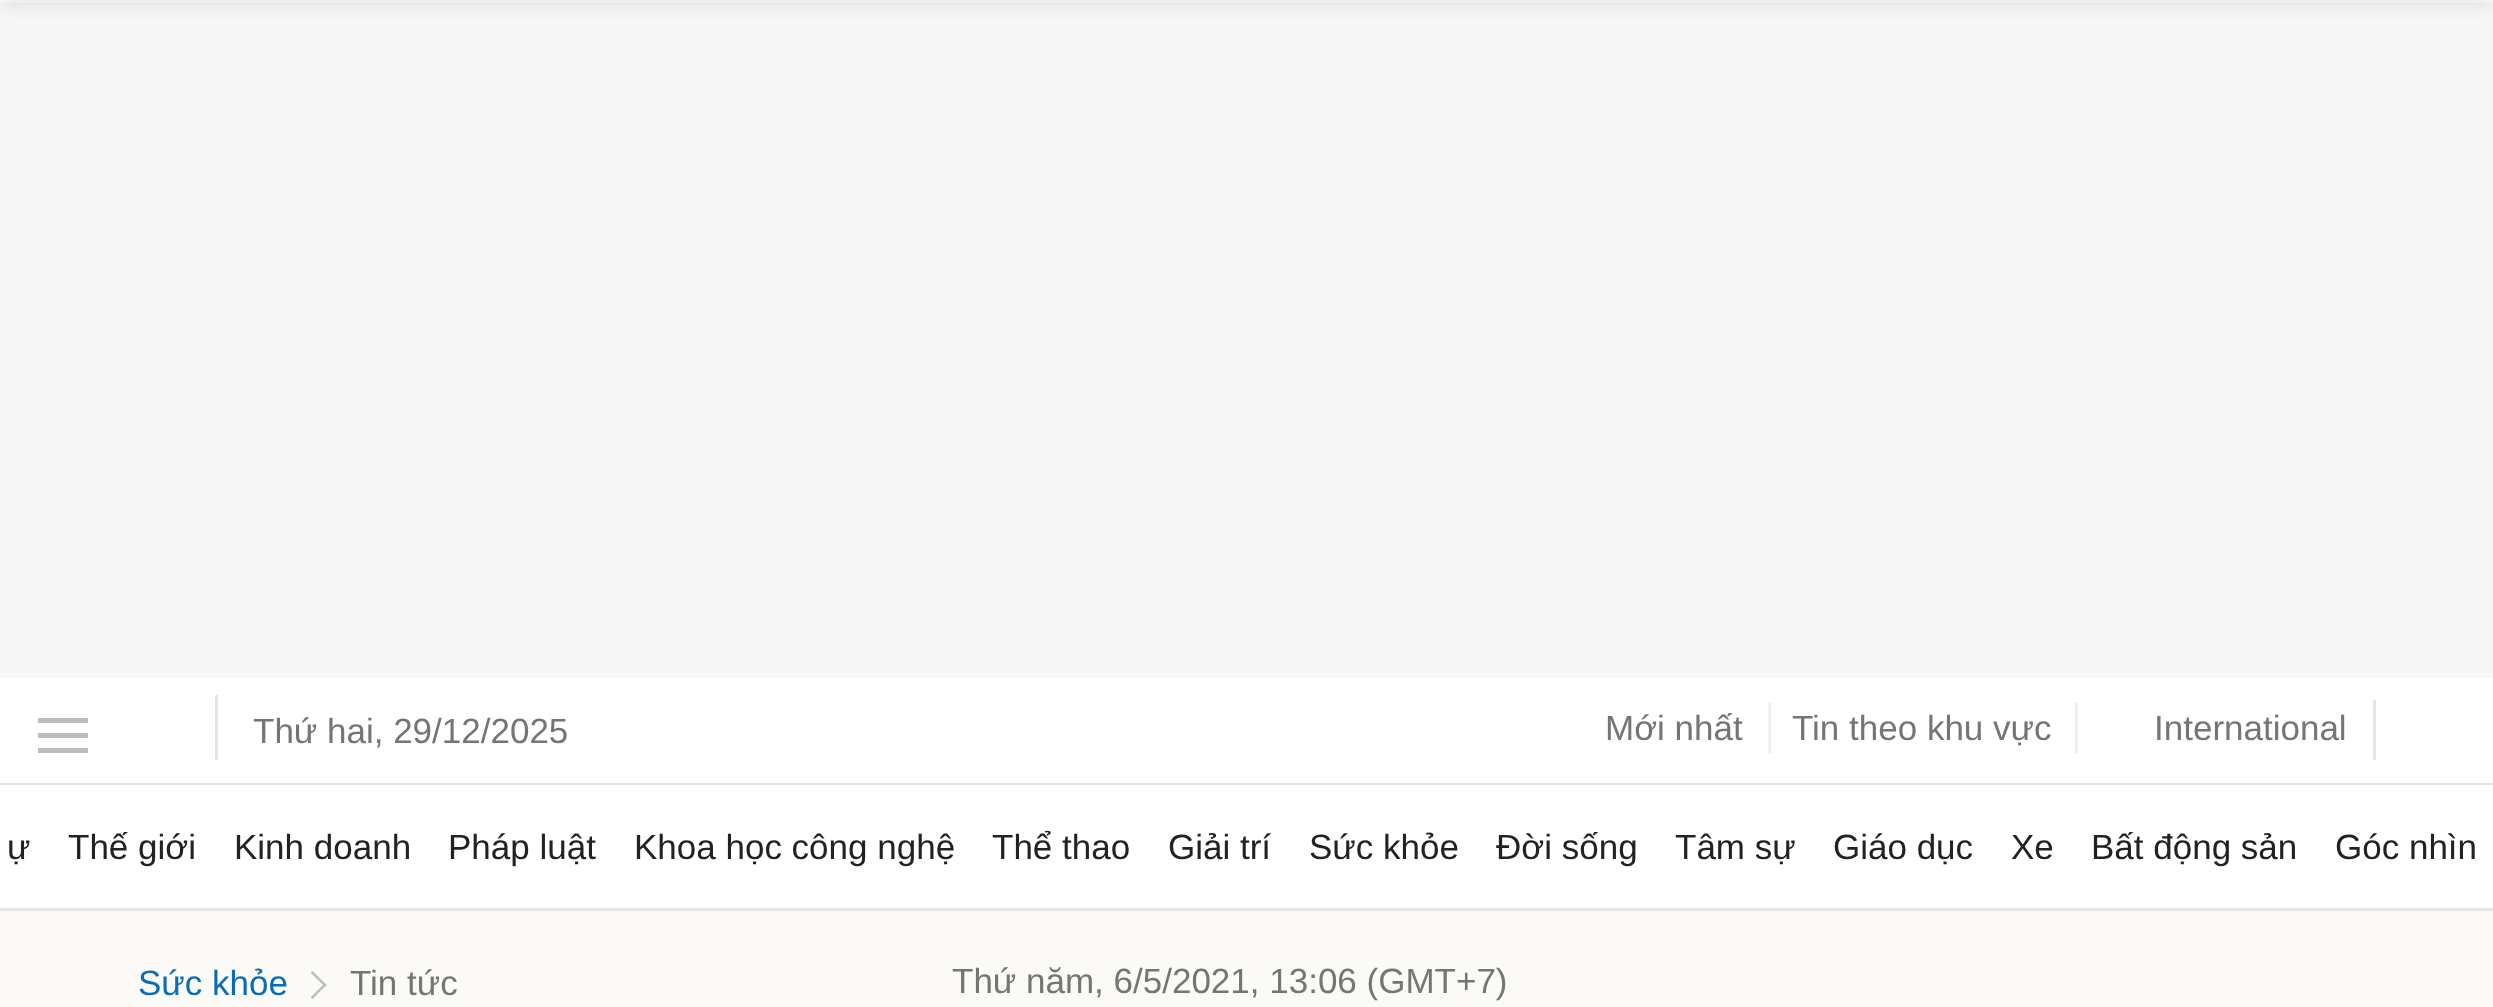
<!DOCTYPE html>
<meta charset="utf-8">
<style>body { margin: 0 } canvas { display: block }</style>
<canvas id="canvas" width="2493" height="1007"></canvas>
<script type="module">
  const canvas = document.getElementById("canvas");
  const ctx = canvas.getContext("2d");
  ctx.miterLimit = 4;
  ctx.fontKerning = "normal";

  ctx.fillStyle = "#ffffff";
  ctx.fillRect(0, 0, 2493, 1007);
  ctx.fillStyle = "#f7f7f7";
  ctx.fillRect(0, 3, 2493, 675);
  ctx.fillStyle = "#e5e5e5";
  ctx.fillRect(0, 783, 2493, 2);
  ctx.fillStyle = "#bdbdbd";
  ctx.fillRect(38, 718, 50, 5);
  ctx.fillRect(38, 733, 50, 5);
  ctx.fillRect(38, 748, 50, 5);
  ctx.fillStyle = "#e5e5e5";
  ctx.fillRect(215, 695, 3, 65);
  ctx.font = "35px Liberation Sans";
  ctx.fillStyle = "#757575";
  ctx.fillText("Thứ hai, 29/12/2025", 253, 743);
  ctx.fillText("Mới nhất", 1605, 740);
  ctx.fillStyle = "#efefef";
  ctx.fillRect(1768, 703, 3, 50);
  ctx.fillStyle = "#757575";
  ctx.fillText("Tin theo khu vực", 1792, 740);
  ctx.fillStyle = "#efefef";
  ctx.fillRect(2075, 703, 3, 50);
  ctx.fillStyle = "#757575";
  ctx.fillText("International", 2154, 740);
  ctx.fillStyle = "#e5e5e5";
  ctx.fillRect(2373, 700, 3, 60);
  ctx.fillRect(0, 908, 2493, 3);
  ctx.fillStyle = "#222222";
  ctx.fillText("ự", 7, 859);
  ctx.fillText("Thế giới", 68, 859);
  ctx.fillText("Kinh doanh", 234, 859);
  ctx.fillText("Pháp luật", 448, 859);
  ctx.fillText("Khoa học công nghệ", 634, 859);
  ctx.fillText("Thể thao", 992, 859);
  ctx.fillText("Giải trí", 1168, 859);
  ctx.fillText("Sức khỏe", 1309, 859);
  ctx.fillText("Đời sống", 1496, 859);
  ctx.fillText("Tâm sự", 1675, 859);
  ctx.fillText("Giáo dục", 1833, 859);
  ctx.fillText("Xe", 2011, 859);
  ctx.fillText("Bất động sản", 2091, 859);
  ctx.fillText("Góc nhìn", 2335, 859);
  ctx.fillStyle = "#fcfaf6";
  ctx.fillRect(0, 911, 2493, 96);
  ctx.fillStyle = "rgba(0, 0, 0, 0.1)";
  ctx.filter = "blur(10px)";
  ctx.beginPath();
  ctx.rect(0, -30, 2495, 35);
  ctx.fill();
  ctx.filter = "none";
  ctx.fillStyle = "#076db6";
  ctx.fillText("Sức khỏe", 138, 995);
  ctx.fillStyle = "#bdbdbd";
  ctx.beginPath();
  ctx.moveTo(312.5, 971);
  ctx.lineTo(326.5, 985);
  ctx.lineTo(325, 987);
  ctx.lineTo(310.5, 972.5);
  ctx.closePath();
  ctx.fill();
  ctx.beginPath();
  ctx.moveTo(325, 983);
  ctx.lineTo(326.5, 985);
  ctx.lineTo(312.5, 999);
  ctx.lineTo(310.5, 997.5);
  ctx.closePath();
  ctx.fill();
  ctx.fillStyle = "#757575";
  ctx.fillText("Tin tức", 350, 995);
  ctx.fillText("Thứ năm, 6/5/2021, 13:06 (GMT+7)", 952, 993);
</script>
